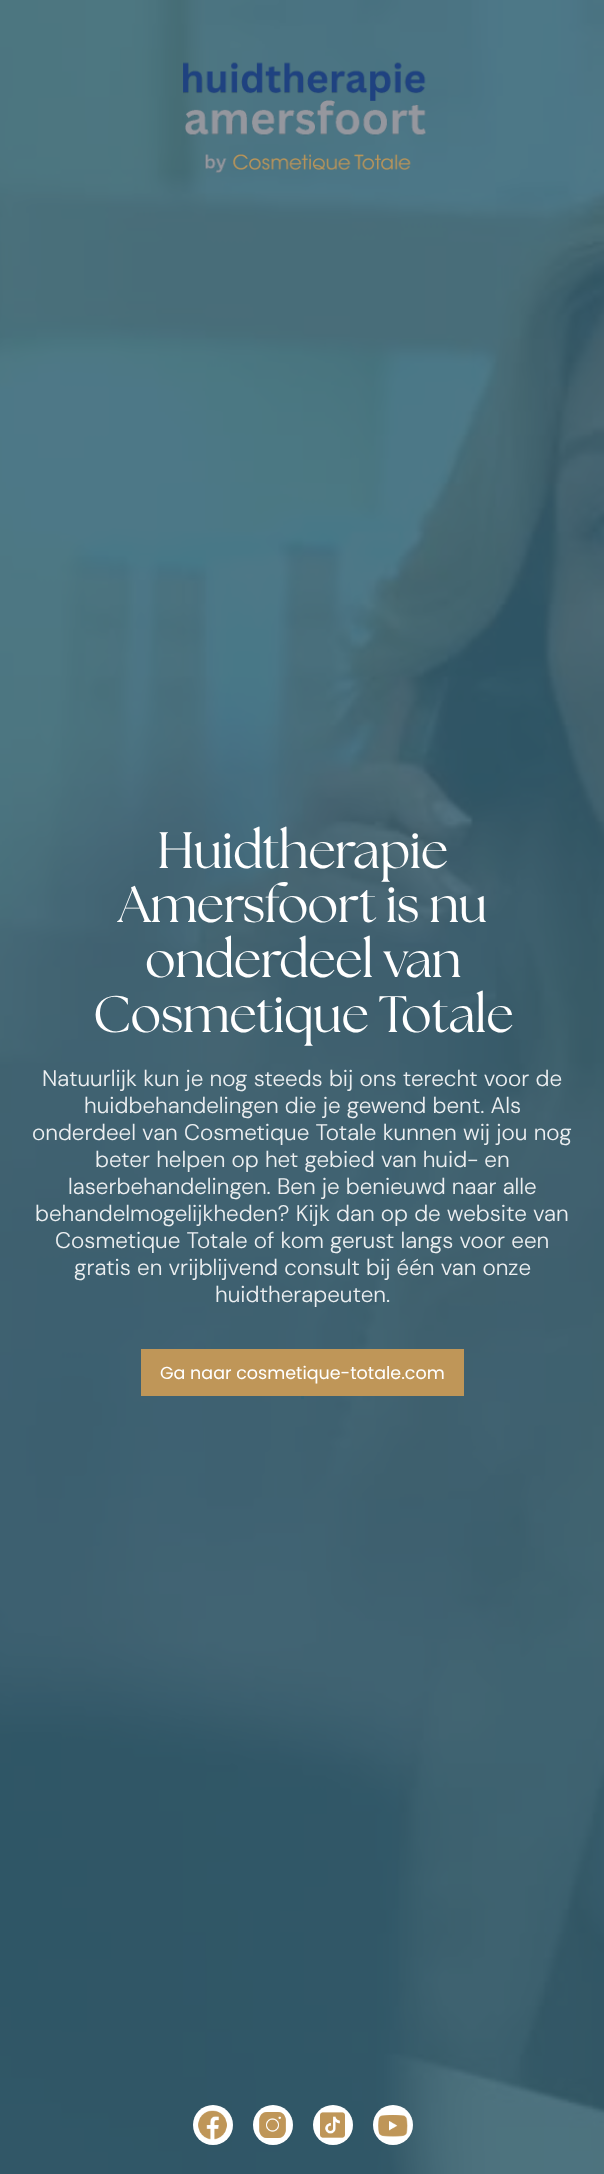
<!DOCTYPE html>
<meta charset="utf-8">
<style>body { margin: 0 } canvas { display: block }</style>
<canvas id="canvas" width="604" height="2174"></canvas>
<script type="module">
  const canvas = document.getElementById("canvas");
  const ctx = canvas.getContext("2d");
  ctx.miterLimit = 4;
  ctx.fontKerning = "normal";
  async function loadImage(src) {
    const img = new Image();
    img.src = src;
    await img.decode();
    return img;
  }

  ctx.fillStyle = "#ffffff";
  ctx.fillRect(0, 0, 604, 2174);
  ctx.drawImage(await loadImage("img1.png"), 0, 0, 604, 2174);
  ctx.drawImage(await loadImage("img2.png"), 183, 62, 243, 111);
  ctx.letterSpacing = "-0.6px";
  ctx.font = "51.25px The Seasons";
  ctx.fillText("Huidtherapie", 157, 868);
  ctx.fillText("Amersfoort is nu", 118, 922);
  ctx.fillText("onderdeel van", 145, 977);
  ctx.fillText("Cosmetique Totale", 93, 1032);
  ctx.letterSpacing = "0px";
  ctx.font = "300 22.5px DM Sans";
  ctx.fillStyle = "#eceff1";
  ctx.fillText("Natuurlijk kun je nog steeds bij ons terecht voor de", 42, 1086);
  ctx.fillText("huidbehandelingen die je gewend bent. Als", 84, 1113);
  ctx.fillText("onderdeel van Cosmetique Totale kunnen wij jou nog", 32, 1140);
  ctx.fillText("beter helpen op het gebied van huid- en", 95, 1167);
  ctx.fillText("laserbehandelingen. Ben je benieuwd naar alle", 68, 1194);
  ctx.fillText("behandelmogelijkheden? Kijk dan op de website van", 35, 1221);
  ctx.fillText("Cosmetique Totale of kom gerust langs voor een", 55, 1248);
  ctx.fillText("gratis en vrijblijvend consult bij één van onze", 74, 1275);
  ctx.fillText("huidtherapeuten.", 215, 1302);
  ctx.fillStyle = "#bf9658";
  ctx.fillRect(141, 1349, 323, 47);
  ctx.font = "17.5px Poppins";
  ctx.fillStyle = "#ffffff";
  ctx.fillText("Ga naar cosmetique-totale.com", 160, 1379);
  ctx.fillStyle = "#356274";
  ctx.fillRect(301, 1396, 3, 3);
  ctx.fillStyle = "#ffffff";
  ctx.beginPath();
  ctx.arc(213, 2125, 20, 0, Math.PI * 2);
  ctx.fill();
  ctx.drawImage(await loadImage("img3.png"), 198, 2110, 29, 30);
  ctx.beginPath();
  ctx.arc(273, 2125, 20, 0, Math.PI * 2);
  ctx.fill();
  ctx.drawImage(await loadImage("img4.png"), 259, 2112, 27, 26);
  ctx.beginPath();
  ctx.arc(333, 2125, 20, 0, Math.PI * 2);
  ctx.fill();
  ctx.drawImage(await loadImage("img5.png"), 320, 2112, 25, 26);
  ctx.beginPath();
  ctx.arc(393, 2125, 20, 0, Math.PI * 2);
  ctx.fill();
  ctx.drawImage(await loadImage("img6.png"), 378, 2115, 30, 22);
</script>
